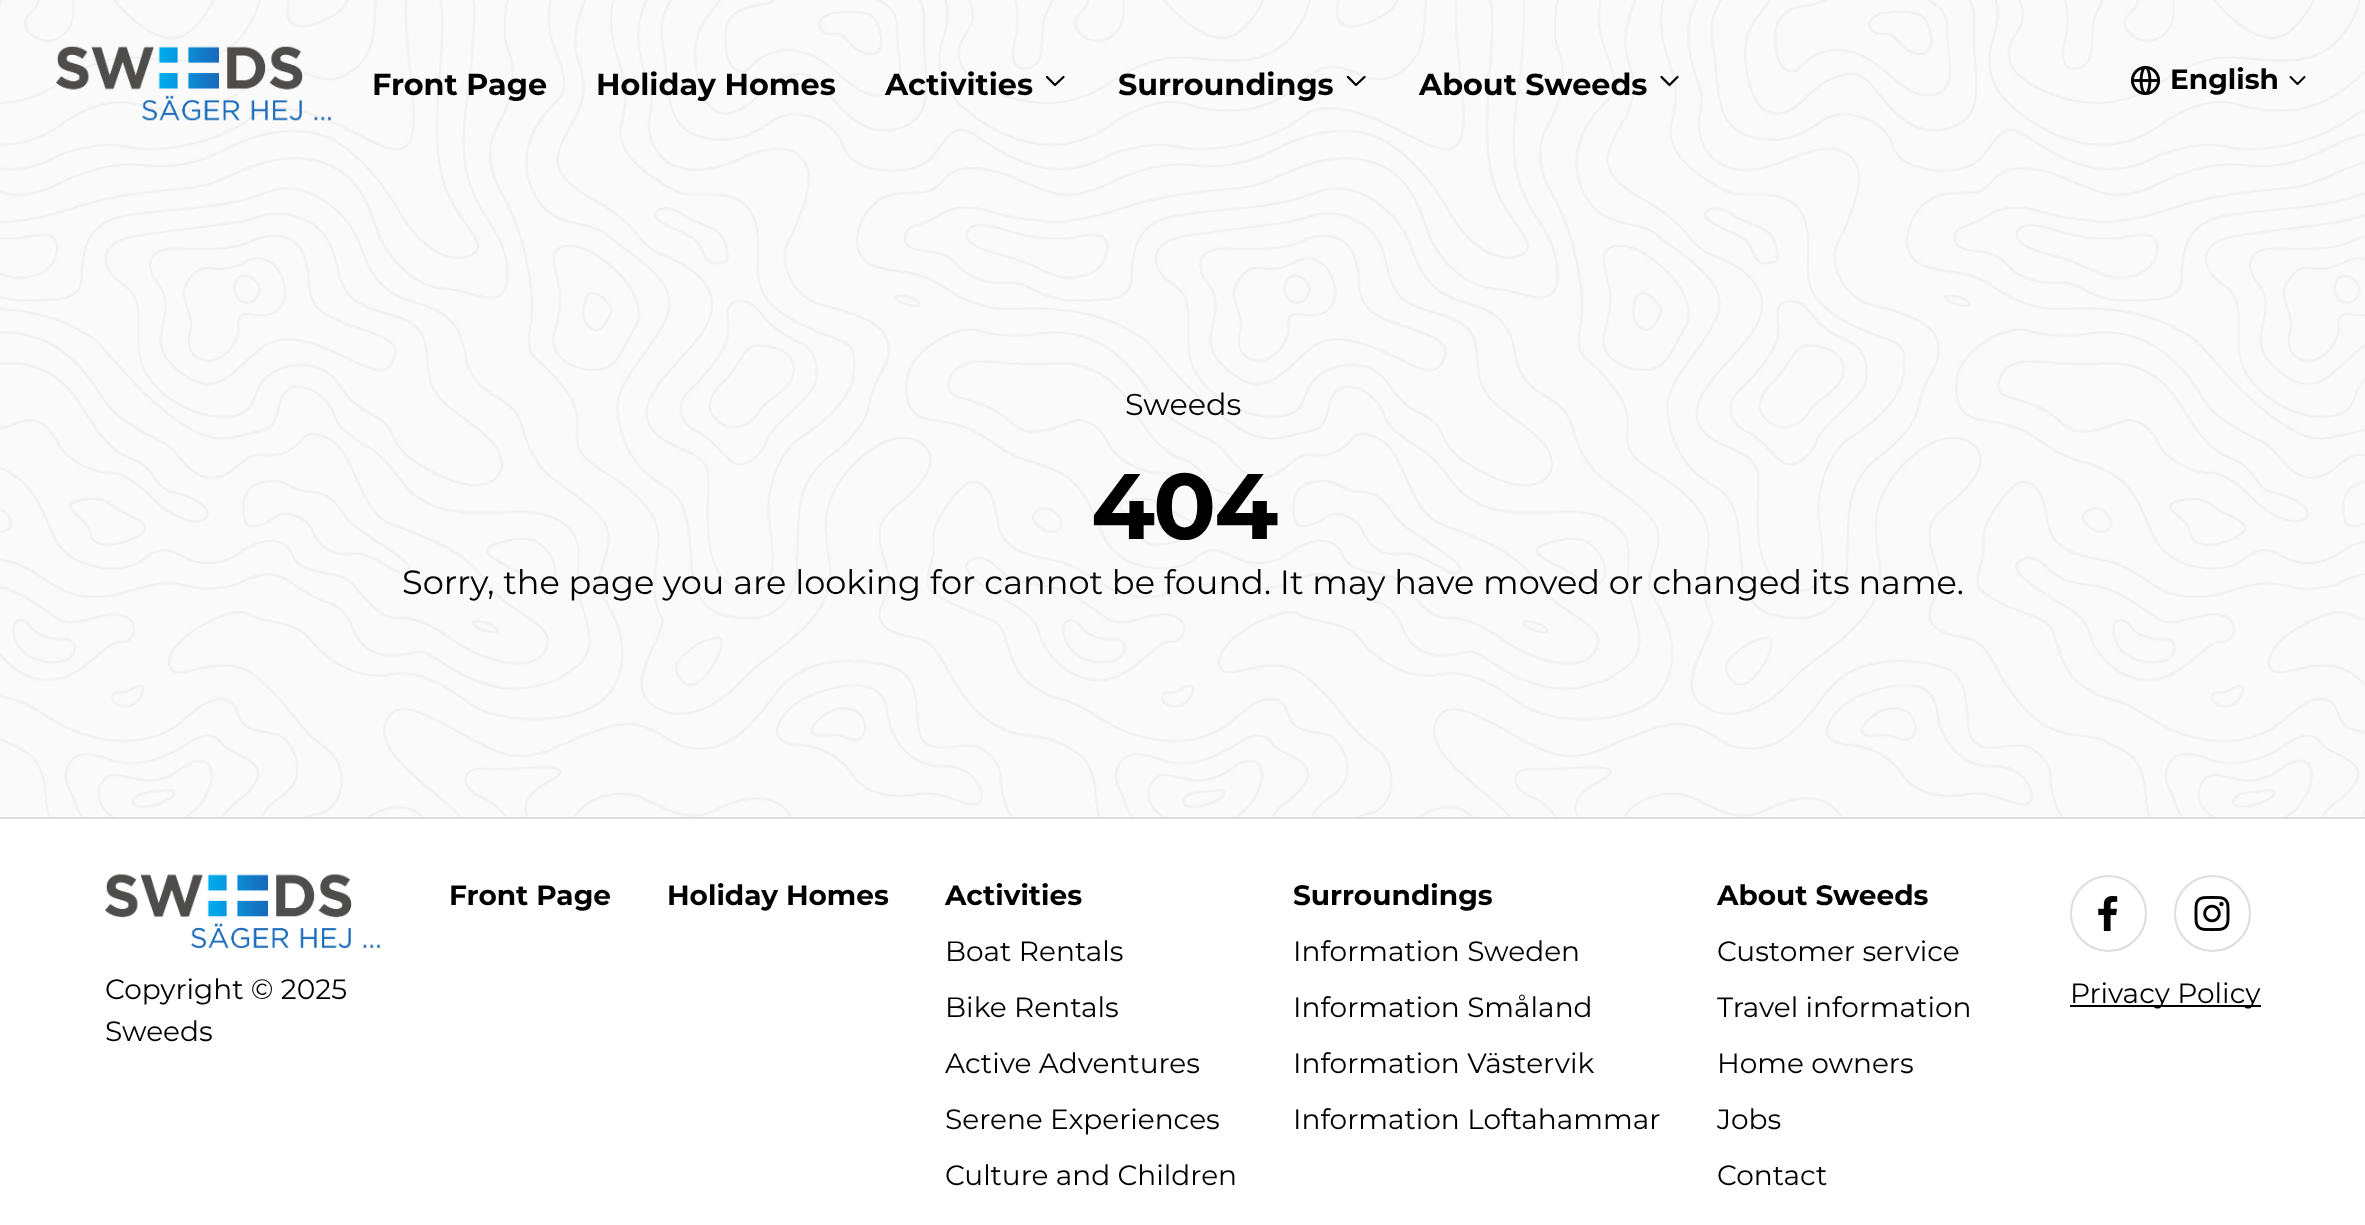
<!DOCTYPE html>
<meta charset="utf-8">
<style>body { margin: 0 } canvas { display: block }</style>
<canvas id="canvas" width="2365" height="1225"></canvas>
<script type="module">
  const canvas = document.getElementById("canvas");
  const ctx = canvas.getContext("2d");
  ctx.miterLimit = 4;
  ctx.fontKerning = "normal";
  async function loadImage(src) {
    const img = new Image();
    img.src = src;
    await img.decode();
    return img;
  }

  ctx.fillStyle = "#ffffff";
  ctx.fillRect(0, 0, 2365, 1225);
  ctx.fillStyle = "#fafafa";
  ctx.fillRect(0, 0, 2365, 817);
  ctx.drawImage(await loadImage("img3.png"), 0, 0, 2365, 817);
  ctx.drawImage(await loadImage("img1.png"), 56, 46, 275, 75);
  ctx.font = "bold 30.25px Montserrat";
  ctx.fillStyle = "#000000";
  ctx.fillText("Front Page", 372, 95);
  ctx.fillText("Holiday Homes", 596, 95);
  ctx.fillText("Activities", 885, 95);
  ctx.beginPath();
  ctx.moveTo(1063.5, 77);
  ctx.lineTo(1055, 85);
  ctx.lineTo(1047, 77);
  ctx.strokeStyle = "#000000";
  ctx.lineWidth = 2.3;
  ctx.lineCap = "round";
  ctx.lineJoin = "round";
  ctx.stroke();
  ctx.fillText("Surroundings", 1118, 95);
  ctx.beginPath();
  ctx.moveTo(1364.5, 77);
  ctx.lineTo(1356, 85);
  ctx.lineTo(1348, 77);
  ctx.stroke();
  ctx.fillText("About Sweeds", 1419, 95);
  ctx.beginPath();
  ctx.moveTo(1677.5, 77);
  ctx.lineTo(1669.5, 85);
  ctx.lineTo(1661.5, 77);
  ctx.stroke();
  ctx.drawImage(await loadImage("img2.png"), 2130, 65, 31, 31);
  ctx.font = "bold 28px Montserrat";
  ctx.fillText("English", 2170, 89);
  ctx.beginPath();
  ctx.moveTo(2304.5, 77);
  ctx.lineTo(2297.5, 84);
  ctx.lineTo(2290.5, 77);
  ctx.lineWidth = 2;
  ctx.stroke();
  ctx.font = "30.25px Montserrat";
  ctx.fillText("Sweeds", 1125, 415);
  ctx.letterSpacing = "-2px";
  ctx.font = "bold 93px Montserrat";
  ctx.fillText("404", 1091, 539);
  ctx.letterSpacing = "0px";
  ctx.font = "33.6px Montserrat";
  ctx.fillText("Sorry, the page you are looking for cannot be found. It may have moved or changed its name.", 402, 594);
  ctx.fillStyle = "#dddddd";
  ctx.fillRect(0, 817, 2365, 2);
  ctx.drawImage(await loadImage("img4.png"), 105, 874, 275, 74);
  ctx.font = "28px Montserrat";
  ctx.fillStyle = "#000000";
  ctx.fillText("Copyright © 2025", 105, 999);
  ctx.fillText("Sweeds", 105, 1041);
  ctx.font = "bold 28px Montserrat";
  ctx.fillText("Front Page", 449, 905);
  ctx.fillText("Holiday Homes", 667, 905);
  ctx.fillText("Activities", 945, 905);
  ctx.font = "28px Montserrat";
  ctx.fillText("Boat Rentals", 945, 961);
  ctx.fillText("Bike Rentals", 945, 1017);
  ctx.fillText("Active Adventures", 945, 1073);
  ctx.fillText("Serene Experiences", 945, 1129);
  ctx.fillText("Culture and Children", 945, 1185);
  ctx.font = "bold 28px Montserrat";
  ctx.fillText("Surroundings", 1293, 905);
  ctx.font = "28px Montserrat";
  ctx.fillText("Information Sweden", 1293, 961);
  ctx.fillText("Information Småland", 1293, 1017);
  ctx.fillText("Information Västervik", 1293, 1073);
  ctx.fillText("Information Loftahammar", 1293, 1129);
  ctx.font = "bold 28px Montserrat";
  ctx.fillText("About Sweeds", 1717, 905);
  ctx.font = "28px Montserrat";
  ctx.fillText("Customer service", 1717, 961);
  ctx.fillText("Travel information", 1717, 1017);
  ctx.fillText("Home owners", 1717, 1073);
  ctx.fillText("Jobs", 1717, 1129);
  ctx.fillText("Contact", 1717, 1185);
  ctx.beginPath();
  ctx.arc(2108.5, 913.5, 37.5, 0, Math.PI * 2);
  ctx.strokeStyle = "#dddddd";
  ctx.stroke();
  ctx.drawImage(await loadImage("img5.png"), 2098, 896, 20, 35);
  ctx.beginPath();
  ctx.arc(2212.5, 913.5, 37.5, 0, Math.PI * 2);
  ctx.stroke();
  ctx.drawImage(await loadImage("img6.png"), 2194, 896, 36, 35);
  ctx.fillRect(2070, 1005, 191, 2);
  ctx.fillText("Privacy Policy", 2070, 1003);
</script>
